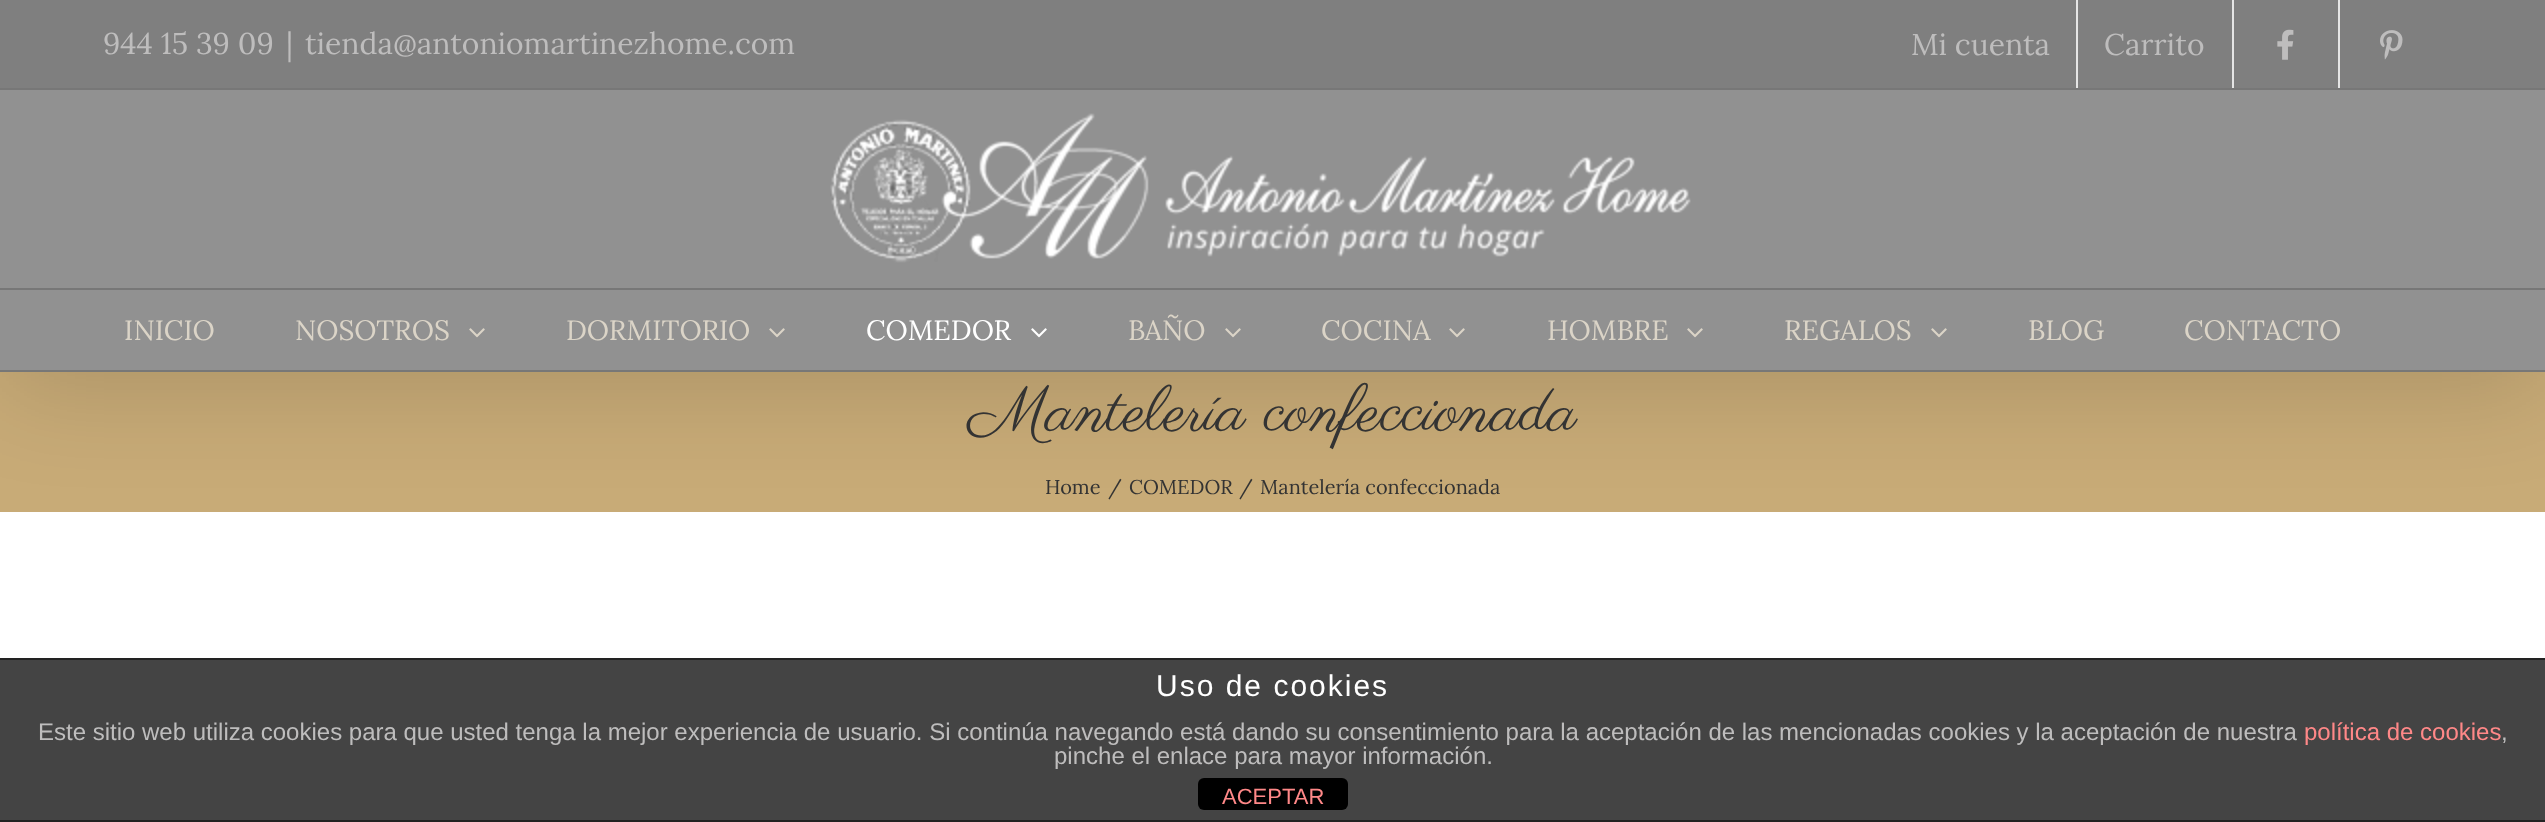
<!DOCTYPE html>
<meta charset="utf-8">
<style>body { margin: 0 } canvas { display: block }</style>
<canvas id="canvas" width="2545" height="822"></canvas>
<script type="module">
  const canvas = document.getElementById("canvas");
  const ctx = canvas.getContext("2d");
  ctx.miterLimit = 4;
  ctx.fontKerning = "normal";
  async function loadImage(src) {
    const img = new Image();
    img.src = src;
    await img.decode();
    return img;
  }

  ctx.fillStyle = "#ffffff";
  ctx.fillRect(0, 0, 2545, 822);
  ctx.fillStyle = "#c8ab77";
  ctx.fillRect(0, 372, 2545, 140);
  ctx.fillStyle = "rgba(0, 0, 0, 0.14)";
  ctx.filter = "blur(50px)";
  ctx.beginPath();
  ctx.rect(4, 24, 2538, 364);
  ctx.fill();
  ctx.filter = "none";
  ctx.fillStyle = "#7f7f7f";
  ctx.fillRect(0, 0, 2545, 88);
  ctx.fillStyle = "#777777";
  ctx.fillRect(0, 88, 2545, 2);
  ctx.font = "30px Lora";
  ctx.fillStyle = "#bebdbd";
  ctx.fillText("944 15 39 09", 103, 54);
  ctx.fillText("|", 286, 54);
  ctx.fillText("tienda@antoniomartinezhome.com", 305, 54);
  ctx.fillText("Mi cuenta", 1911, 55);
  ctx.fillStyle = "#e5e5e5";
  ctx.fillRect(2076, 0, 2, 88);
  ctx.fillStyle = "#bebdbd";
  ctx.fillText("Carrito", 2104, 55);
  ctx.fillStyle = "#e5e5e5";
  ctx.fillRect(2232, 0, 2, 88);
  ctx.drawImage(await loadImage("img1.png"), 2277, 29, 17, 31);
  ctx.fillRect(2338, 0, 2, 88);
  ctx.drawImage(await loadImage("img2.png"), 2380, 30, 23, 30);
  ctx.fillStyle = "#919191";
  ctx.fillRect(0, 90, 2545, 198);
  ctx.fillStyle = "#777777";
  ctx.fillRect(0, 288, 2545, 2);
  ctx.drawImage(await loadImage("img3.png"), 830, 113, 861, 150);
  ctx.fillStyle = "#919191";
  ctx.fillRect(0, 290, 2545, 80);
  ctx.fillStyle = "#777777";
  ctx.fillRect(0, 370, 2545, 2);
  ctx.font = "28px Lora";
  ctx.fillStyle = "#dbd4c7";
  ctx.fillText("INICIO", 124, 340);
  ctx.fillText("NOSOTROS", 295, 340);
  ctx.drawImage(await loadImage("img4.png"), 469, 328, 16, 10);
  ctx.fillText("DORMITORIO", 566, 340);
  ctx.drawImage(await loadImage("img4.png"), 769, 328, 16, 10);
  ctx.fillStyle = "#ffffff";
  ctx.fillText("COMEDOR", 866, 340);
  ctx.drawImage(await loadImage("img5.png"), 1031, 328, 16, 10);
  ctx.fillStyle = "#dbd4c7";
  ctx.fillText("BAÑO", 1128, 340);
  ctx.drawImage(await loadImage("img4.png"), 1225, 328, 16, 10);
  ctx.fillText("COCINA", 1321, 340);
  ctx.drawImage(await loadImage("img4.png"), 1449, 328, 16, 10);
  ctx.fillText("HOMBRE", 1547, 340);
  ctx.drawImage(await loadImage("img4.png"), 1687, 328, 16, 10);
  ctx.fillText("REGALOS", 1784, 340);
  ctx.drawImage(await loadImage("img4.png"), 1931, 328, 16, 10);
  ctx.fillText("BLOG", 2028, 340);
  ctx.fillText("CONTACTO", 2184, 340);
  ctx.font = "64px Parisienne";
  ctx.fillStyle = "#333333";
  ctx.fillText("Mantelería confeccionada", 969, 430);
  ctx.font = "20px Lora";
  ctx.fillText("Home", 1045, 494);
  ctx.fillText("/", 1108, 494);
  ctx.fillText("COMEDOR", 1129, 494);
  ctx.fillText("/", 1239, 494);
  ctx.fillText("Mantelería confeccionada", 1260, 494);
  ctx.fillStyle = "#444444";
  ctx.fillRect(0, 660, 2545, 160);
  ctx.fillStyle = "#222222";
  ctx.fillRect(0, 658, 2545, 2);
  ctx.fillRect(0, 820, 2545, 2);
  ctx.letterSpacing = "2px";
  ctx.font = "30px Liberation Sans";
  ctx.fillStyle = "#ffffff";
  ctx.fillText("Uso de cookies", 1156, 696);
  ctx.letterSpacing = "0px";
  ctx.font = "24px Liberation Sans";
  ctx.fillStyle = "#bebdbd";
  ctx.fillText("Este sitio web utiliza cookies para que usted tenga la mejor experiencia de usuario. Si continúa navegando está dando su consentimiento para la aceptación de las mencionadas cookies y la aceptación de nuestra", 38, 740);
  ctx.fillStyle = "#ff8888";
  ctx.fillText("política de cookies", 2304, 740);
  ctx.fillStyle = "#bebdbd";
  ctx.fillText(",", 2501, 740);
  ctx.fillText("pinche el enlace para mayor información.", 1054, 764);
  ctx.fillStyle = "#000000";
  ctx.beginPath();
  ctx.roundRect(1198, 778, 150, 32, 6);
  ctx.fill();
  ctx.font = "22px Liberation Sans";
  ctx.fillStyle = "#ff8888";
  ctx.fillText("ACEPTAR", 1222, 804);
</script>
